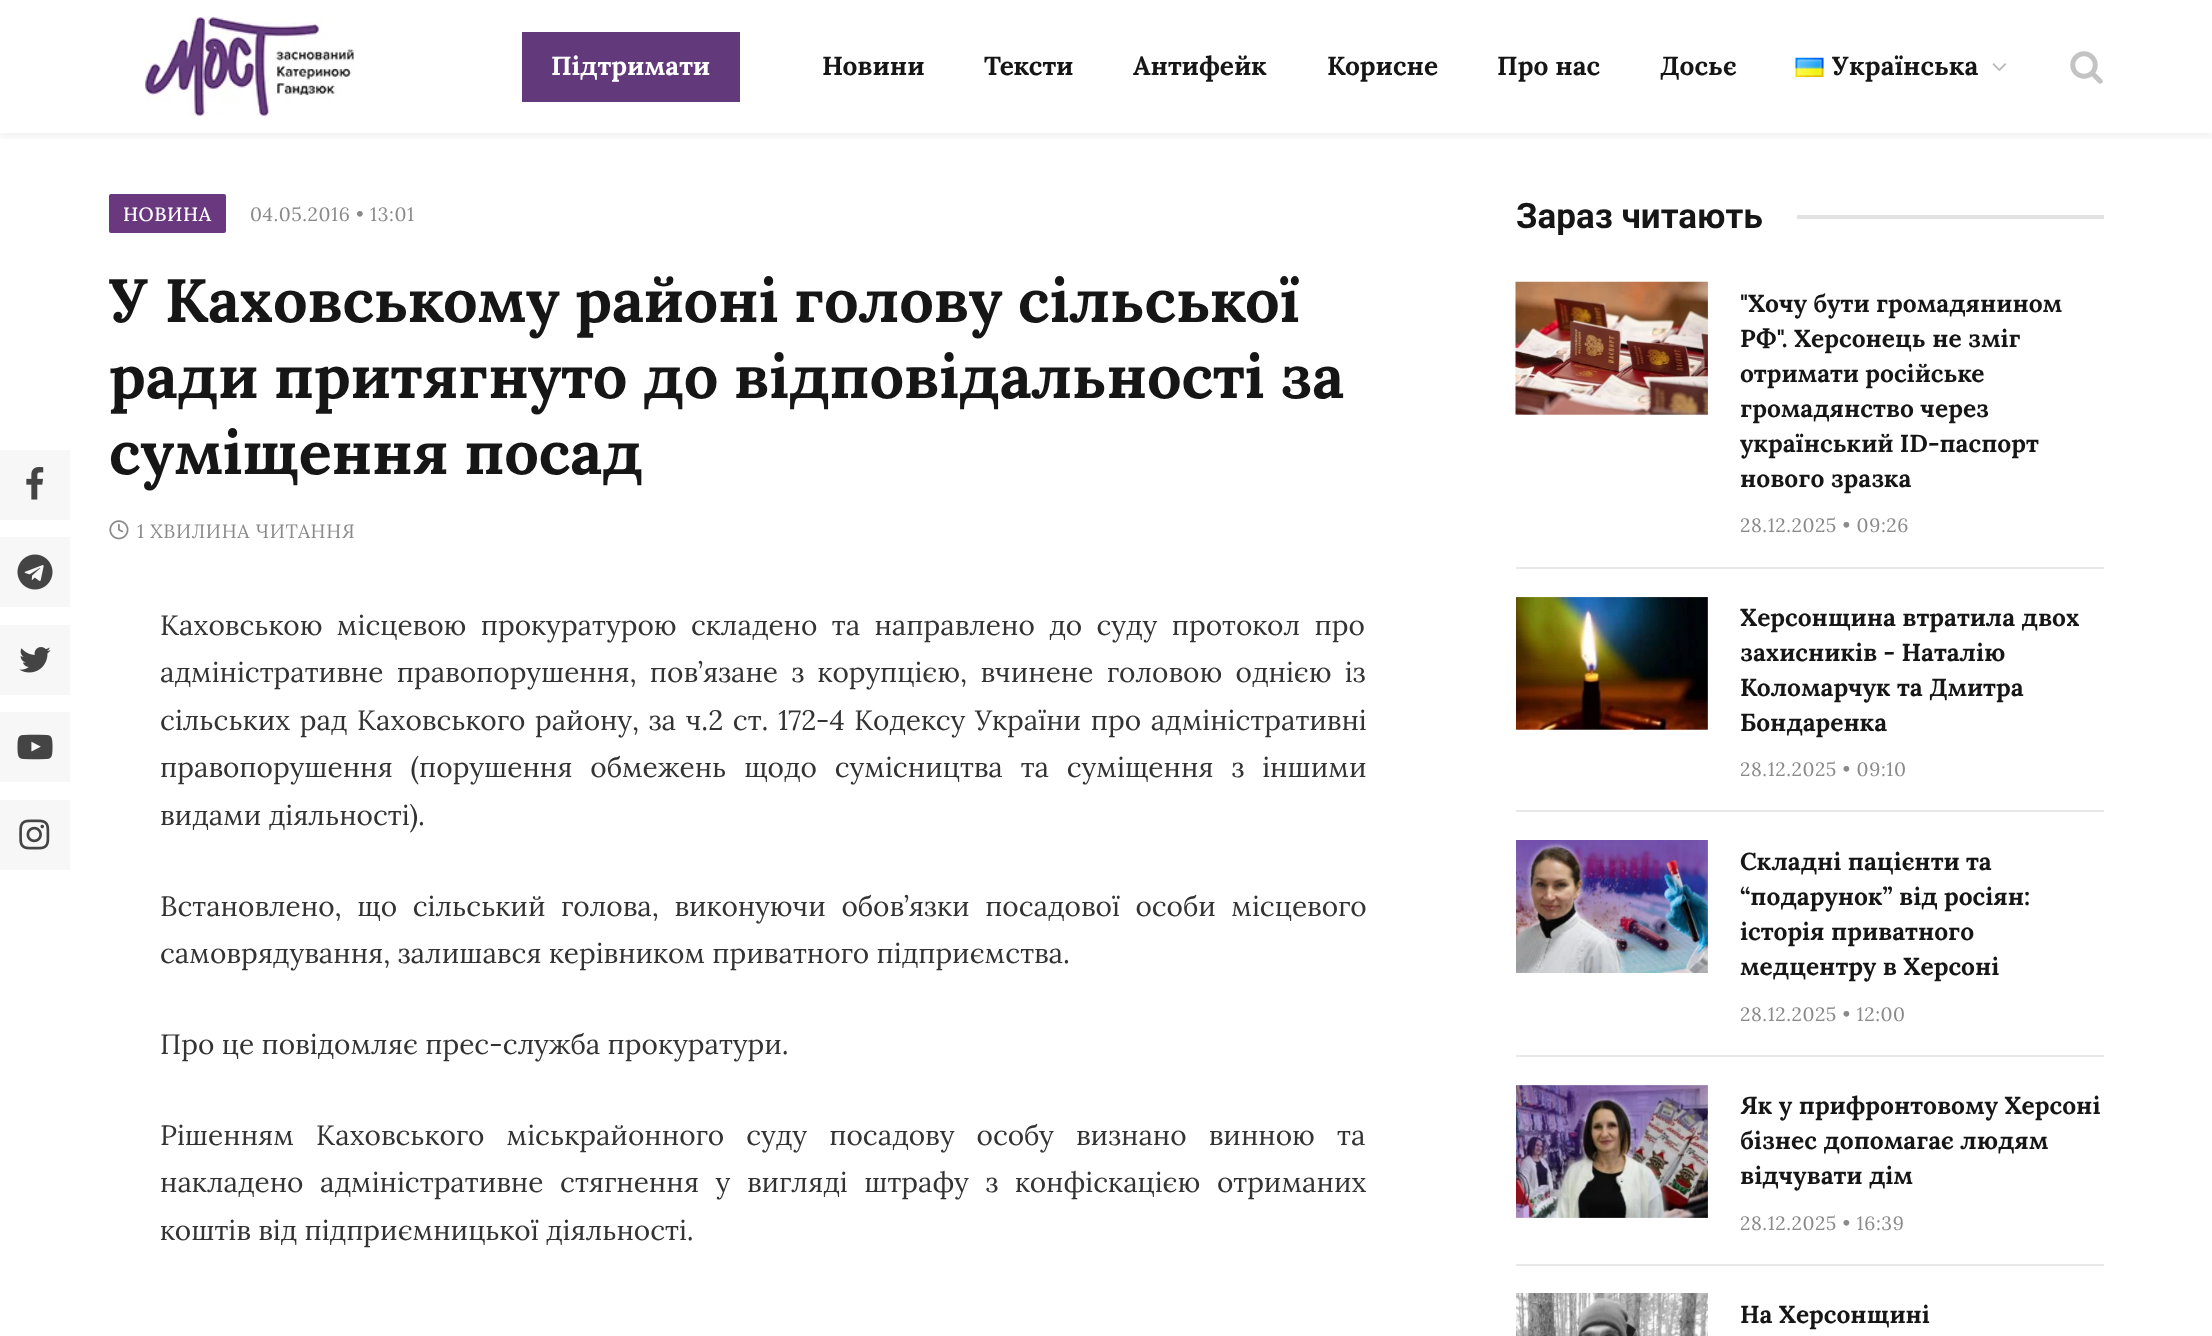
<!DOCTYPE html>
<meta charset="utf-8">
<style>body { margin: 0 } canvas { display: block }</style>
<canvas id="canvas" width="2212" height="1336"></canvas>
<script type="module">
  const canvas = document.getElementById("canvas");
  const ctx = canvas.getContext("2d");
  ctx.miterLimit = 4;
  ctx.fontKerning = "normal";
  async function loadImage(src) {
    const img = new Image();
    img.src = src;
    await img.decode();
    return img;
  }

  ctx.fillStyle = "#ffffff";
  ctx.fillRect(0, 0, 2212, 1336);
  ctx.fillStyle = "#f7f7f7";
  ctx.fillRect(0, 450, 70, 70);
  ctx.drawImage(await loadImage("img1.png"), 26, 467, 18, 33);
  ctx.fillRect(0, 537, 70, 70);
  ctx.drawImage(await loadImage("img2.png"), 17, 554, 36, 36);
  ctx.fillRect(0, 625, 70, 70);
  ctx.drawImage(await loadImage("img3.png"), 19, 647, 32, 26);
  ctx.fillRect(0, 712, 70, 70);
  ctx.drawImage(await loadImage("img4.png"), 17, 734, 36, 26);
  ctx.fillRect(0, 800, 70, 70);
  ctx.drawImage(await loadImage("img5.png"), 19, 819, 31, 31);
  ctx.fillStyle = "#623a7b";
  ctx.fillRect(522, 32, 218, 70);
  ctx.save();
  ctx.beginPath();
  ctx.rect(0, 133, 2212, 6);
  ctx.clip();
  ctx.fillStyle = "rgba(0, 0, 0, 0.05)";
  ctx.filter = "blur(3.5px)";
  ctx.beginPath();
  ctx.rect(0, 5, 2212, 133);
  ctx.fill();
  ctx.filter = "none";
  ctx.restore();
  ctx.drawImage(await loadImage("img6.png"), 145, 17, 209, 99);
  ctx.font = "bold 26.25px Lora";
  ctx.fillStyle = "#ffffff";
  ctx.fillText("Підтримати", 551, 75);
  ctx.fillStyle = "#161616";
  ctx.fillText("Новини", 822, 75);
  ctx.fillText("Тексти", 984, 75);
  ctx.fillText("Антифейк", 1133, 75);
  ctx.fillText("Корисне", 1327, 75);
  ctx.fillText("Про нас", 1497, 75);
  ctx.fillText("Досьє", 1660, 75);
  ctx.drawImage(await loadImage("img7.png"), 1795, 57, 29, 20);
  ctx.fillText("Українська", 1832, 75);
  ctx.drawImage(await loadImage("img8.png"), 1992, 63, 15, 8);
  ctx.drawImage(await loadImage("img9.png"), 2070, 51, 33, 33);
  ctx.fillStyle = "#69387f";
  ctx.beginPath();
  ctx.roundRect(109, 194, 117, 39, 2);
  ctx.fill();
  ctx.letterSpacing = "0.6px";
  ctx.font = "500 19.25px Lora";
  ctx.fillStyle = "#ffffff";
  ctx.fillText("НОВИНА", 123, 221);
  ctx.font = "19.25px Lora";
  ctx.fillStyle = "#8a8a8a";
  ctx.fillText("04.05.2016 • 13:01", 250, 221);
  ctx.letterSpacing = "-0.3px";
  ctx.font = "bold 61.25px Lora";
  ctx.fillStyle = "#161616";
  ctx.fillText("У Каховському районі голову сільської", 109, 322);
  ctx.fillText("ради притягнуто до відповідальності за", 109, 398);
  ctx.fillText("суміщення посад", 109, 474);
  ctx.drawImage(await loadImage("img10.png"), 109, 520, 20, 20);
  ctx.letterSpacing = "0.6px";
  ctx.font = "19.25px Lora";
  ctx.fillStyle = "#8a8a8a";
  ctx.fillText("1 ХВИЛИНА ЧИТАННЯ", 137, 538);
  ctx.letterSpacing = "0px";
  ctx.wordSpacing = "7px";
  ctx.font = "28px Lora";
  ctx.fillStyle = "#333333";
  ctx.fillText("Каховською місцевою прокуратурою складено та направлено до суду протокол про", 160, 635);
  ctx.wordSpacing = "6px";
  ctx.fillText("адміністративне правопорушення, пов’язане з корупцією, вчинене головою однією із", 160, 682);
  ctx.wordSpacing = "2.25px";
  ctx.fillText("сільських рад Каховського району, за ч.2 ст. 172-4 Кодексу України про адміністративні", 160, 730);
  ctx.wordSpacing = "10.5px";
  ctx.fillText("правопорушення (порушення обмежень щодо сумісництва та суміщення з іншими", 160, 777);
  ctx.wordSpacing = "0px";
  ctx.fillText("видами діяльності).", 160, 825);
  ctx.wordSpacing = "8.25px";
  ctx.fillText("Встановлено, що сільський голова, виконуючи обов’язки посадової особи місцевого", 160, 916);
  ctx.wordSpacing = "0px";
  ctx.fillText("самоврядування, залишався керівником приватного підприємства.", 160, 963);
  ctx.fillText("Про це повідомляє прес-служба прокуратури.", 160, 1054);
  ctx.wordSpacing = "14.75px";
  ctx.fillText("Рішенням Каховського міськрайонного суду посадову особу визнано винною та", 160, 1145);
  ctx.wordSpacing = "9.25px";
  ctx.fillText("накладено адміністративне стягнення у вигляді штрафу з конфіскацією отриманих", 160, 1192);
  ctx.wordSpacing = "0px";
  ctx.fillText("коштів від підприємницької діяльності.", 160, 1240);
  ctx.font = "bold 35px Roboto";
  ctx.fillStyle = "#161616";
  ctx.fillText("Зараз читають", 1516, 228);
  ctx.fillStyle = "#e2e2e2";
  ctx.fillRect(1797, 215, 307, 4);
  ctx.drawImage(await loadImage("img11.png"), 1515, 281, 193, 134);
  ctx.font = "bold 24.5px Lora";
  ctx.fillStyle = "#161616";
  ctx.fillText("\"Хочу бути громадянином", 1740, 312);
  ctx.fillText("РФ\". Херсонець не зміг", 1740, 347);
  ctx.fillText("отримати російське", 1740, 382);
  ctx.fillText("громадянство через", 1740, 417);
  ctx.fillText("український ID-паспорт", 1740, 452);
  ctx.fillText("нового зразка", 1740, 487);
  ctx.letterSpacing = "0.6px";
  ctx.font = "19.25px Lora";
  ctx.fillStyle = "#8a8a8a";
  ctx.fillText("28.12.2025 • 09:26", 1740, 532);
  ctx.fillStyle = "#e8e8e8";
  ctx.fillRect(1516, 567, 588, 2);
  ctx.drawImage(await loadImage("img12.png"), 1516, 597, 192, 133);
  ctx.letterSpacing = "0px";
  ctx.font = "bold 24.5px Lora";
  ctx.fillStyle = "#161616";
  ctx.fillText("Херсонщина втратила двох", 1740, 626);
  ctx.fillText("захисників - Наталію", 1740, 661);
  ctx.fillText("Коломарчук та Дмитра", 1740, 696);
  ctx.fillText("Бондаренка", 1740, 731);
  ctx.letterSpacing = "0.6px";
  ctx.font = "19.25px Lora";
  ctx.fillStyle = "#8a8a8a";
  ctx.fillText("28.12.2025 • 09:10", 1740, 776);
  ctx.fillStyle = "#e8e8e8";
  ctx.fillRect(1516, 810, 588, 2);
  ctx.drawImage(await loadImage("img13.png"), 1516, 840, 192, 133);
  ctx.letterSpacing = "0px";
  ctx.font = "bold 24.5px Lora";
  ctx.fillStyle = "#161616";
  ctx.fillText("Складні пацієнти та", 1740, 870);
  ctx.fillText("“подарунок” від росіян:", 1740, 905);
  ctx.fillText("історія приватного", 1740, 940);
  ctx.fillText("медцентру в Херсоні", 1740, 975);
  ctx.letterSpacing = "0.6px";
  ctx.font = "19.25px Lora";
  ctx.fillStyle = "#8a8a8a";
  ctx.fillText("28.12.2025 • 12:00", 1740, 1021);
  ctx.fillStyle = "#e8e8e8";
  ctx.fillRect(1516, 1055, 588, 2);
  ctx.drawImage(await loadImage("img14.png"), 1516, 1085, 192, 133);
  ctx.letterSpacing = "0px";
  ctx.font = "bold 24.5px Lora";
  ctx.fillStyle = "#161616";
  ctx.fillText("Як у прифронтовому Херсоні", 1740, 1114);
  ctx.fillText("бізнес допомагає людям", 1740, 1149);
  ctx.fillText("відчувати дім", 1740, 1184);
  ctx.letterSpacing = "0.6px";
  ctx.font = "19.25px Lora";
  ctx.fillStyle = "#8a8a8a";
  ctx.fillText("28.12.2025 • 16:39", 1740, 1230);
  ctx.fillStyle = "#e8e8e8";
  ctx.fillRect(1516, 1264, 588, 2);
  ctx.drawImage(await loadImage("img15.png"), 1516, 1293, 192, 43);
  ctx.letterSpacing = "0px";
  ctx.font = "bold 24.5px Lora";
  ctx.fillStyle = "#161616";
  ctx.fillText("На Херсонщині", 1740, 1323);
</script>
